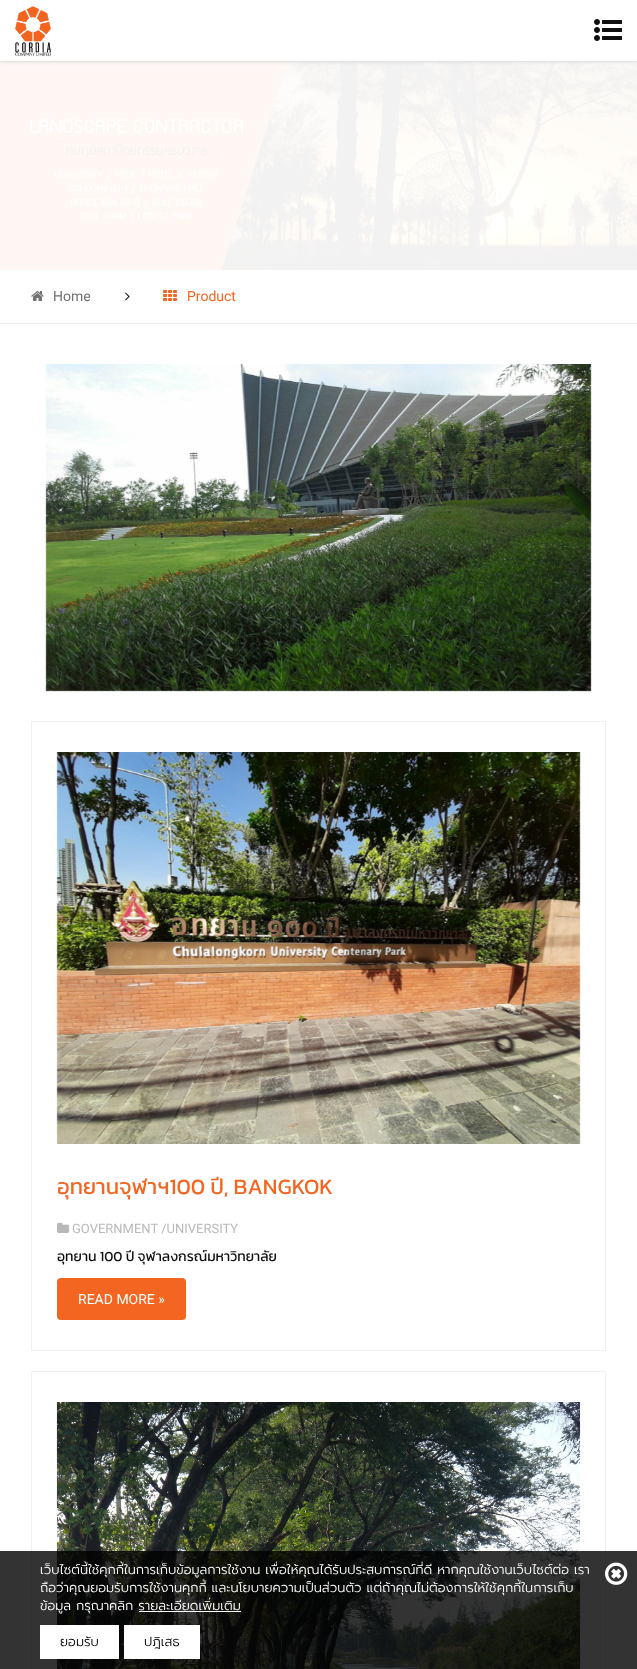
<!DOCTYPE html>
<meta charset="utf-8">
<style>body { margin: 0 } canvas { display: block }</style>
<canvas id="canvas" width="637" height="1669"></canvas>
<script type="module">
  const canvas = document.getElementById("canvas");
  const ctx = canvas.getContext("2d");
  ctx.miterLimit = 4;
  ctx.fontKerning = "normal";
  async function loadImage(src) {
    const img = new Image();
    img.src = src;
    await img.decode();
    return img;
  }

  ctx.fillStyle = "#ffffff";
  ctx.fillRect(0, 0, 637, 1669);
  ctx.drawImage(await loadImage("img3.png"), 0, 61, 637, 209);
  ctx.fillStyle = "#cccccc";
  ctx.filter = "blur(2px)";
  ctx.beginPath();
  ctx.rect(0, 0, 637, 61);
  ctx.fill();
  ctx.filter = "none";
  ctx.fillStyle = "#ffffff";
  ctx.fillRect(0, 0, 637, 61);
  ctx.drawImage(await loadImage("img1.png"), 15, 6, 37, 51);
  ctx.drawImage(await loadImage("img2.png"), 594, 19, 28, 22);
  ctx.fillStyle = "#f0f0f0";
  ctx.fillRect(0, 323, 637, 1);
  ctx.drawImage(await loadImage("img4.png"), 31, 291, 13, 10);
  ctx.font = "14px Roboto";
  ctx.fillStyle = "#727272";
  ctx.fillText("Home", 53, 301);
  ctx.drawImage(await loadImage("img5.png"), 125, 292, 5, 9);
  ctx.drawImage(await loadImage("img6.png"), 163, 290, 14, 11);
  ctx.fillStyle = "#f36621";
  ctx.fillText("Product", 187, 301);
  ctx.drawImage(await loadImage("img7.png"), 45, 364, 547, 328);
  ctx.strokeStyle = "#f0f0f0";
  ctx.strokeRect(31.5, 721.5, 574, 629);
  ctx.drawImage(await loadImage("img8.png"), 56, 752, 525, 392);
  ctx.font = "22px Kanit";
  ctx.fillText("อุทยานจุฬาฯ100 ปี, BANGKOK", 57, 1194);
  ctx.drawImage(await loadImage("img9.png"), 57, 1222, 13, 11);
  ctx.font = "13px Roboto";
  ctx.fillStyle = "#b9b9b9";
  ctx.fillText("GOVERNMENT /UNIVERSITY", 72, 1233);
  ctx.font = "14px Kanit";
  ctx.fillStyle = "#101010";
  ctx.fillText("อุทยาน 100 ปี จุฬาลงกรณ์มหาวิทยาลัย", 57, 1261);
  ctx.fillStyle = "#f36621";
  ctx.beginPath();
  ctx.roundRect(57, 1278, 129, 42, 4);
  ctx.fill();
  ctx.font = "14px Roboto";
  ctx.fillStyle = "#ffffff";
  ctx.fillText("READ MORE »", 78, 1304);
  ctx.strokeRect(31.5, 1371.5, 574, 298);
  ctx.drawImage(await loadImage("img10.png"), 56, 1402, 525, 267);
  ctx.fillStyle = "rgba(0, 0, 0, 0.8)";
  ctx.fillRect(0, 1551, 637, 118);
  ctx.font = "300 13px Prompt";
  ctx.fillStyle = "#ffffff";
  ctx.fillText("เว็บไซต์นี้ใช้คุกกี้ในการเก็บข้อมูลการใช้งาน เพื่อให้คุณได้รับประสบการณ์ที่ดี หากคุณใช้งานเว็บไซต์ต่อ เรา", 40, 1574);
  ctx.fillText("ถือว่าคุณยอมรับการใช้งานคุกกี้ และนโยบายความเป็นส่วนตัว แต่ถ้าคุณไม่ต้องการให้ใช้คุกกี้ในการเก็บ", 40, 1592);
  ctx.fillText("ข้อมูล กรุณาคลิก รายละเอียดเพิ่มเติม", 40, 1610);
  ctx.fillRect(139, 1611, 102, 1);
  ctx.fillRect(40, 1625, 79, 34);
  ctx.fillStyle = "#000000";
  ctx.fillText("ยอมรับ", 60, 1646);
  ctx.fillStyle = "#ffffff";
  ctx.fillRect(124, 1625, 76, 34);
  ctx.fillStyle = "#000000";
  ctx.fillText("ปฎิเสธ", 144, 1646);
  ctx.drawImage(await loadImage("img11.png"), 605, 1562, 23, 23);
</script>
